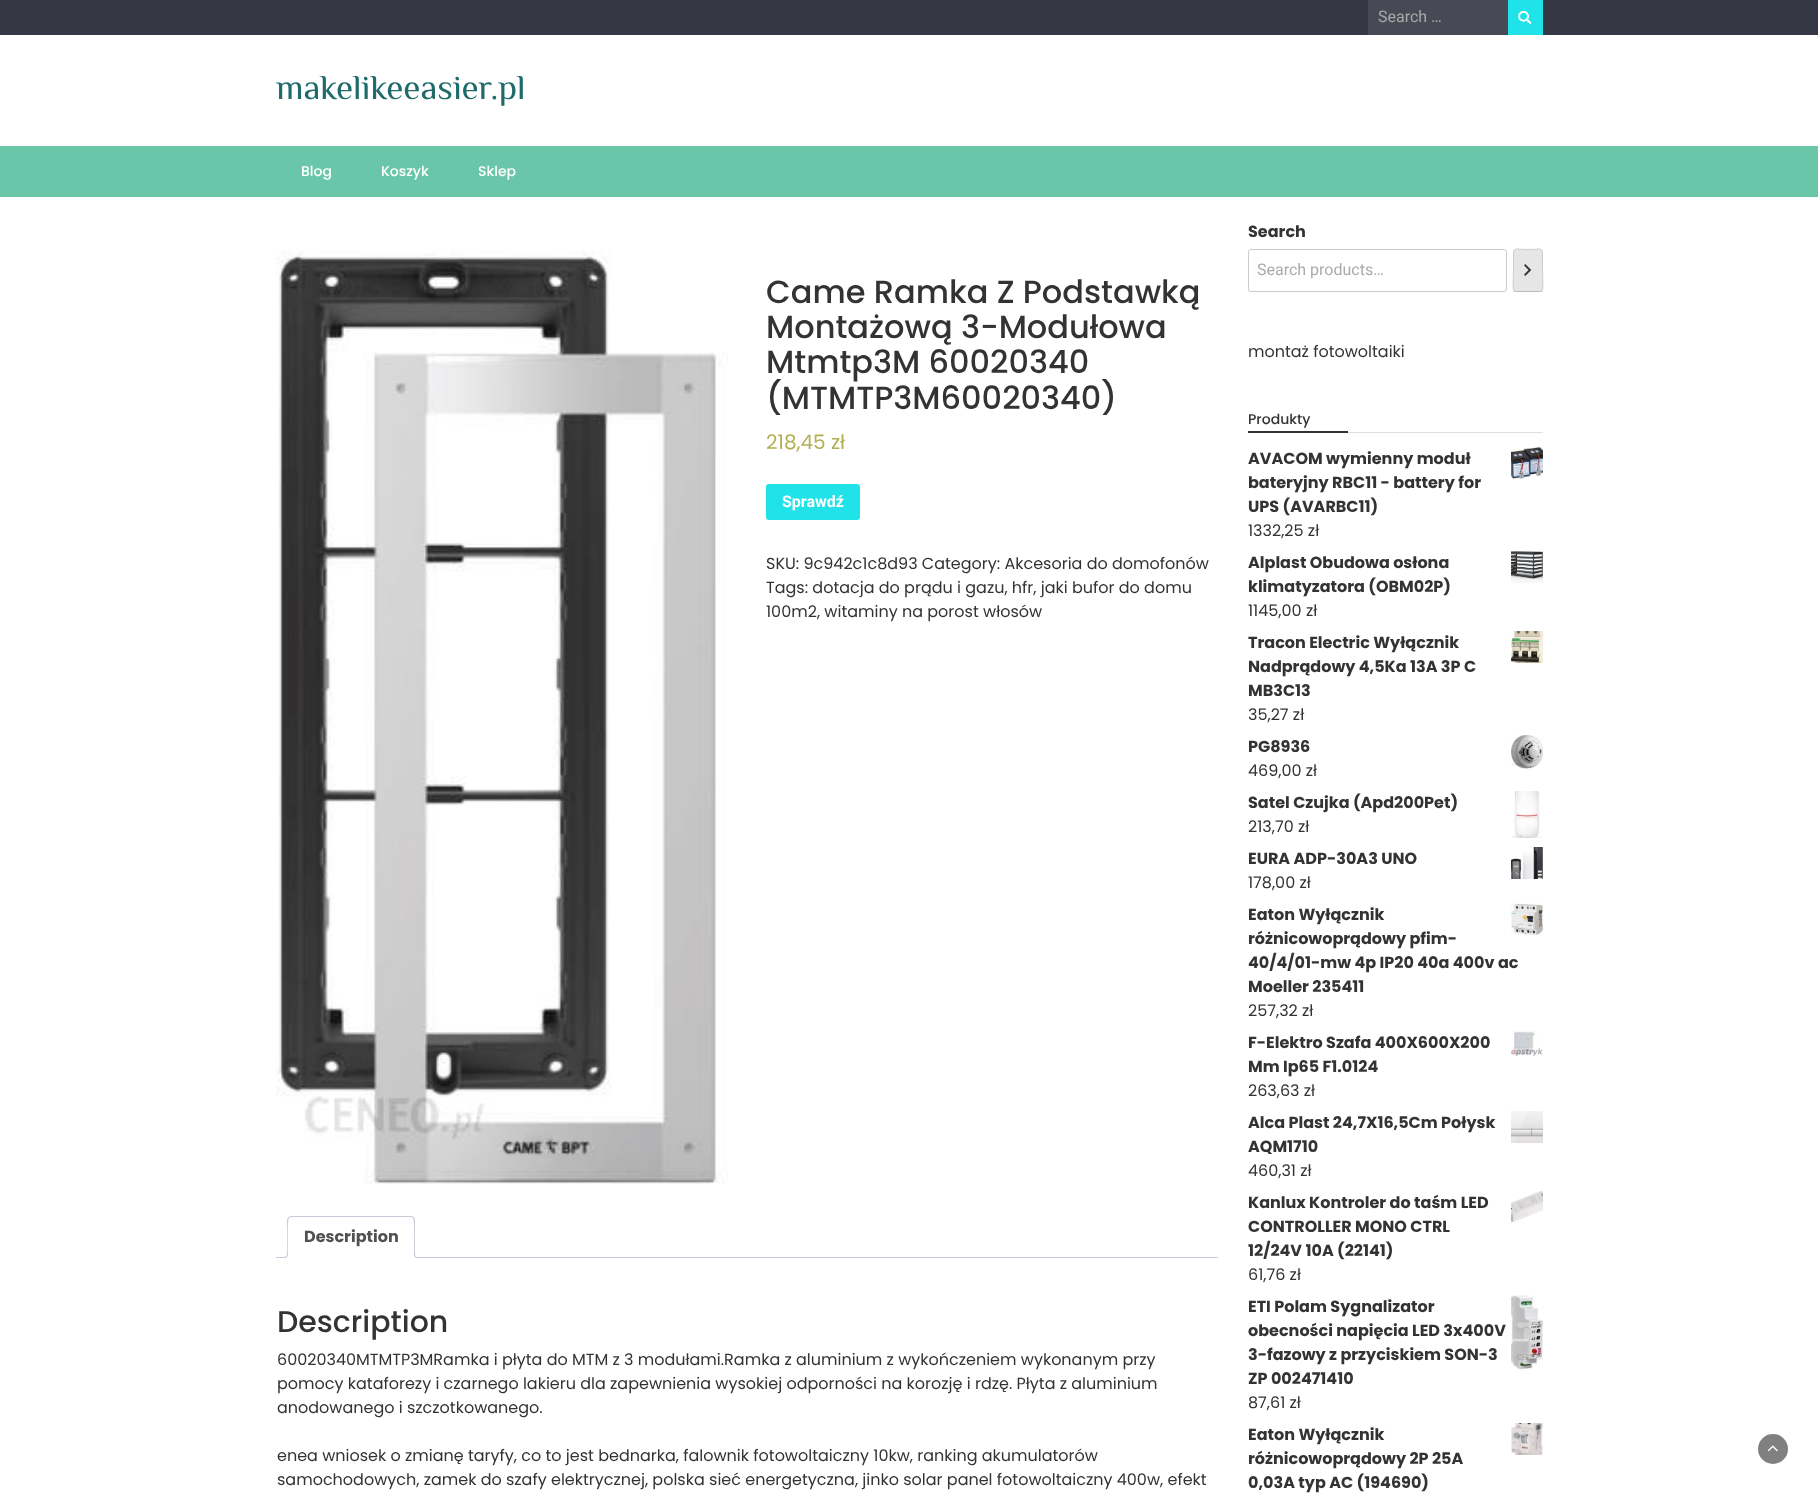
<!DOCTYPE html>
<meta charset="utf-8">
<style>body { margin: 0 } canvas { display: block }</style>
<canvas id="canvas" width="1818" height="1494"></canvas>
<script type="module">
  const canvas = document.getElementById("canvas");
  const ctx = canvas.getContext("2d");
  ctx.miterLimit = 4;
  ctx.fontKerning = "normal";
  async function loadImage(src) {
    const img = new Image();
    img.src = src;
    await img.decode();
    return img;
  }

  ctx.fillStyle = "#ffffff";
  ctx.fillRect(0, 0, 1818, 1494);
  ctx.fillStyle = "#353844";
  ctx.fillRect(0, 0, 1818, 35);
  ctx.fillStyle = "#474a55";
  ctx.fillRect(1368, 0, 140, 35);
  ctx.font = "16px Roboto";
  ctx.fillStyle = "#aaaaaa";
  ctx.fillText("Search …", 1378, 22);
  ctx.fillStyle = "#20e3ea";
  ctx.fillRect(1508, 0, 35, 35);
  ctx.drawImage(await loadImage("img1.png"), 1518, 10, 14, 15);
  ctx.font = "35px Philosopher";
  ctx.fillStyle = "#1f6b6b";
  ctx.fillText("makelikeeasier.pl", 276, 99);
  ctx.fillStyle = "#69c6a9";
  ctx.fillRect(0, 146, 1818, 51);
  ctx.font = "500 14px Poppins";
  ctx.fillStyle = "#ffffff";
  ctx.fillText("Blog", 301, 176);
  ctx.fillText("Koszyk", 381, 176);
  ctx.fillText("Sklep", 478, 176);
  ctx.drawImage(await loadImage("img2.png"), 276, 250, 452, 934);
  ctx.font = "500 32px Poppins";
  ctx.fillStyle = "#333333";
  ctx.fillText("Came Ramka Z Podstawką", 766, 303);
  ctx.fillText("Montażową 3-Modułowa", 766, 338);
  ctx.fillText("Mtmtp3M 60020340", 766, 373);
  ctx.fillText("(MTMTP3M60020340)", 766, 409);
  ctx.font = "20px Poppins";
  ctx.fillStyle = "#b3af54";
  ctx.fillText("218,45 zł", 766, 449);
  ctx.fillStyle = "#20e3ea";
  ctx.beginPath();
  ctx.roundRect(766, 484, 94, 36, 3);
  ctx.fill();
  ctx.font = "bold 16px Roboto";
  ctx.fillStyle = "#ffffff";
  ctx.fillText("Sprawdź", 782, 507);
  ctx.font = "16px Poppins";
  ctx.fillStyle = "#333333";
  ctx.fillText("SKU: 9c942c1c8d93 Category: Akcesoria do domofonów", 766, 569);
  ctx.fillText("Tags: dotacja do prądu i gazu, hfr, jaki bufor do domu", 766, 593);
  ctx.fillText("100m2, witaminy na porost włosów", 766, 617);
  ctx.fillStyle = "#cfc8d8";
  ctx.fillRect(276, 1257, 942, 1);
  ctx.fillStyle = "#ffffff";
  ctx.beginPath();
  ctx.roundRect(287, 1216, 128, 42, [4, 4, 0, 0]);
  ctx.fill();
  ctx.fillStyle = "#cfc8d8";
  ctx.beginPath();
  ctx.moveTo(291, 1216);
  ctx.lineTo(288, 1217);
  ctx.lineTo(289, 1218);
  ctx.lineTo(291, 1217);
  ctx.lineTo(411, 1217);
  ctx.lineTo(413, 1218);
  ctx.lineTo(414, 1217);
  ctx.lineTo(411, 1216);
  ctx.closePath();
  ctx.fill();
  ctx.beginPath();
  ctx.moveTo(415, 1258);
  ctx.lineTo(415, 1220);
  ctx.bezierCurveTo(415, 1219, 414, 1218, 414, 1217);
  ctx.lineTo(413, 1218);
  ctx.bezierCurveTo(415, 1220, 414, 1252, 414, 1257);
  ctx.closePath();
  ctx.fill();
  ctx.fillStyle = "#ffffff";
  ctx.beginPath();
  ctx.moveTo(415, 1258);
  ctx.lineTo(414, 1257);
  ctx.lineTo(288, 1257);
  ctx.lineTo(287, 1258);
  ctx.closePath();
  ctx.fill();
  ctx.fillStyle = "#cfc8d8";
  ctx.beginPath();
  ctx.moveTo(287, 1258);
  ctx.lineTo(288, 1257);
  ctx.bezierCurveTo(288, 1252, 287, 1220, 289, 1218);
  ctx.lineTo(288, 1217);
  ctx.lineTo(287, 1220);
  ctx.closePath();
  ctx.fill();
  ctx.font = "bold 16px Poppins";
  ctx.fillStyle = "#515151";
  ctx.fillText("Description", 304, 1242);
  ctx.save();
  ctx.beginPath();
  ctx.rect(276, 1216, 942, 42);
  ctx.clip();
  ctx.fillStyle = "#ffffff";
  ctx.beginPath();
  ctx.moveTo(285, 1258);
  ctx.lineTo(285, 1260);
  ctx.bezierCurveTo(288.5, 1260, 290, 1258.5, 290, 1255);
  ctx.lineTo(288, 1255);
  ctx.bezierCurveTo(287.5, 1256.5, 286.5, 1257.5, 285, 1258);
  ctx.closePath();
  ctx.fill();
  ctx.restore();
  ctx.fillStyle = "#cfc8d8";
  ctx.beginPath();
  ctx.moveTo(283, 1253);
  ctx.lineTo(288, 1253);
  ctx.bezierCurveTo(288, 1256.5, 286.5, 1258, 283, 1258);
  ctx.closePath();
  ctx.moveTo(283, 1253);
  ctx.lineTo(287, 1253);
  ctx.bezierCurveTo(287, 1256, 286, 1257, 283, 1257);
  ctx.closePath();
  ctx.fill("evenodd");
  ctx.save();
  ctx.beginPath();
  ctx.rect(276, 1216, 942, 42);
  ctx.clip();
  ctx.fillStyle = "#ffffff";
  ctx.beginPath();
  ctx.moveTo(412, 1255);
  ctx.bezierCurveTo(412, 1258.5, 413.5, 1260, 417, 1260);
  ctx.lineTo(417, 1258);
  ctx.bezierCurveTo(415.5, 1257.5, 414.5, 1256.5, 414, 1255);
  ctx.closePath();
  ctx.fill();
  ctx.restore();
  ctx.beginPath();
  ctx.moveTo(414, 1253);
  ctx.lineTo(419, 1253);
  ctx.lineTo(419, 1258);
  ctx.bezierCurveTo(416.5, 1258, 414, 1257, 414, 1254);
  ctx.closePath();
  ctx.moveTo(415, 1253);
  ctx.lineTo(419, 1253);
  ctx.lineTo(419, 1257);
  ctx.bezierCurveTo(417, 1257, 415, 1256.5, 415, 1254);
  ctx.closePath();
  ctx.fill("evenodd");
  ctx.font = "500 30px Poppins";
  ctx.fillStyle = "#333333";
  ctx.fillText("Description", 277, 1332);
  ctx.font = "16px Poppins";
  ctx.fillText("60020340MTMTP3MRamka i płyta do MTM z 3 modułami.Ramka z aluminium z wykończeniem wykonanym przy", 277, 1365);
  ctx.fillText("pomocy kataforezy i czarnego lakieru dla zapewnienia wysokiej odporności na korozję i rdzę. Płyta z aluminium", 277, 1389);
  ctx.fillText("anodowanego i szczotkowanego.", 277, 1413);
  ctx.fillText("enea wniosek o zmianę taryfy, co to jest bednarka, falownik fotowoltaiczny 10kw, ranking akumulatorów", 277, 1461);
  ctx.fillText("samochodowych, zamek do szafy elektrycznej, polska sieć energetyczna, jinko solar panel fotowoltaiczny 400w, efekt", 277, 1485);
  ctx.font = "bold 16px Poppins";
  ctx.fillText("Search", 1248, 237);
  ctx.beginPath();
  ctx.roundRect(1248.5, 249.5, 258, 42, 2.5);
  ctx.strokeStyle = "#cccccc";
  ctx.stroke();
  ctx.font = "16px Roboto";
  ctx.fillStyle = "#aaaaaa";
  ctx.fillText("Search products…", 1257, 275);
  ctx.fillStyle = "#e6e6e6";
  ctx.beginPath();
  ctx.roundRect(1513, 249, 30, 43, 3);
  ctx.fill();
  ctx.beginPath();
  ctx.moveTo(1542, 291);
  ctx.bezierCurveTo(1541.5, 291, 1540.5, 291.5, 1540, 291.5);
  ctx.lineTo(1516, 291.5);
  ctx.bezierCurveTo(1515.5, 291.5, 1514.5, 291, 1514, 291);
  ctx.strokeStyle = "#bbbbbb";
  ctx.stroke();
  ctx.beginPath();
  ctx.moveTo(1514, 291);
  ctx.bezierCurveTo(1512.5, 289, 1513.5, 273.5, 1513.5, 270.5);
  ctx.lineTo(1513.5, 258);
  ctx.bezierCurveTo(1513.5, 246, 1514, 249.5, 1528, 249.5);
  ctx.bezierCurveTo(1542, 249.5, 1542.5, 246, 1542.5, 258);
  ctx.lineTo(1542.5, 270.5);
  ctx.bezierCurveTo(1542.5, 273.5, 1543.5, 289, 1542, 291);
  ctx.strokeStyle = "#cccccc";
  ctx.stroke();
  ctx.drawImage(await loadImage("img3.png"), 1524, 264, 8, 12);
  ctx.font = "16px Poppins";
  ctx.fillStyle = "#333333";
  ctx.fillText("montaż fotowoltaiki", 1248, 357);
  ctx.fillStyle = "#dedede";
  ctx.fillRect(1348, 432, 195, 1);
  ctx.font = "500 14px Poppins";
  ctx.fillStyle = "#333333";
  ctx.fillText("Produkty", 1248, 424);
  ctx.fillRect(1248, 431, 100, 2);
  ctx.font = "bold 16px Poppins";
  ctx.fillText("AVACOM wymienny moduł", 1248, 464);
  ctx.drawImage(await loadImage("img4.png"), 1511, 447, 32, 32);
  ctx.fillText("bateryjny RBC11 - battery for", 1248, 488);
  ctx.fillText("UPS (AVARBC11)", 1248, 512);
  ctx.font = "16px Poppins";
  ctx.fillText("1332,25 zł", 1248, 536);
  ctx.font = "bold 16px Poppins";
  ctx.fillText("Alplast Obudowa osłona", 1248, 568);
  ctx.drawImage(await loadImage("img5.png"), 1511, 551, 32, 32);
  ctx.fillText("klimatyzatora (OBM02P)", 1248, 592);
  ctx.font = "16px Poppins";
  ctx.fillText("1145,00 zł", 1248, 616);
  ctx.font = "bold 16px Poppins";
  ctx.fillText("Tracon Electric Wyłącznik", 1248, 648);
  ctx.drawImage(await loadImage("img6.png"), 1511, 631, 32, 32);
  ctx.fillText("Nadprądowy 4,5Ka 13A 3P C", 1248, 672);
  ctx.fillText("MB3C13", 1248, 696);
  ctx.font = "16px Poppins";
  ctx.fillText("35,27 zł", 1248, 720);
  ctx.font = "bold 16px Poppins";
  ctx.fillText("PG8936", 1248, 752);
  ctx.drawImage(await loadImage("img7.png"), 1511, 735, 32, 34);
  ctx.font = "16px Poppins";
  ctx.fillText("469,00 zł", 1248, 776);
  ctx.font = "bold 16px Poppins";
  ctx.fillText("Satel Czujka (Apd200Pet)", 1248, 808);
  ctx.drawImage(await loadImage("img8.png"), 1511, 791, 32, 47);
  ctx.font = "16px Poppins";
  ctx.fillText("213,70 zł", 1248, 832);
  ctx.font = "bold 16px Poppins";
  ctx.fillText("EURA ADP-30A3 UNO", 1248, 864);
  ctx.drawImage(await loadImage("img9.png"), 1511, 847, 32, 32);
  ctx.font = "16px Poppins";
  ctx.fillText("178,00 zł", 1248, 888);
  ctx.font = "bold 16px Poppins";
  ctx.fillText("Eaton Wyłącznik", 1248, 920);
  ctx.drawImage(await loadImage("img10.png"), 1511, 903, 32, 32);
  ctx.fillText("różnicowoprądowy pfim-", 1248, 944);
  ctx.fillText("40/4/01-mw 4p IP20 40a 400v ac", 1248, 968);
  ctx.fillText("Moeller 235411", 1248, 992);
  ctx.font = "16px Poppins";
  ctx.fillText("257,32 zł", 1248, 1016);
  ctx.font = "bold 16px Poppins";
  ctx.fillText("F-Elektro Szafa 400X600X200", 1248, 1048);
  ctx.drawImage(await loadImage("img11.png"), 1511, 1031, 32, 25);
  ctx.fillText("Mm Ip65 F1.0124", 1248, 1072);
  ctx.font = "16px Poppins";
  ctx.fillText("263,63 zł", 1248, 1096);
  ctx.font = "bold 16px Poppins";
  ctx.fillText("Alca Plast 24,7X16,5Cm Połysk", 1248, 1128);
  ctx.drawImage(await loadImage("img12.png"), 1511, 1111, 32, 32);
  ctx.fillText("AQM1710", 1248, 1152);
  ctx.font = "16px Poppins";
  ctx.fillText("460,31 zł", 1248, 1176);
  ctx.font = "bold 16px Poppins";
  ctx.fillText("Kanlux Kontroler do taśm LED", 1248, 1208);
  ctx.drawImage(await loadImage("img13.png"), 1511, 1191, 32, 31);
  ctx.fillText("CONTROLLER MONO CTRL", 1248, 1232);
  ctx.fillText("12/24V 10A (22141)", 1248, 1256);
  ctx.font = "16px Poppins";
  ctx.fillText("61,76 zł", 1248, 1280);
  ctx.font = "bold 16px Poppins";
  ctx.fillText("ETI Polam Sygnalizator", 1248, 1312);
  ctx.drawImage(await loadImage("img14.png"), 1511, 1295, 32, 75);
  ctx.fillText("obecności napięcia LED 3x400V", 1248, 1336);
  ctx.fillText("3-fazowy z przyciskiem SON-3", 1248, 1360);
  ctx.fillText("ZP 002471410", 1248, 1384);
  ctx.font = "16px Poppins";
  ctx.fillText("87,61 zł", 1248, 1408);
  ctx.font = "bold 16px Poppins";
  ctx.fillText("Eaton Wyłącznik", 1248, 1440);
  ctx.drawImage(await loadImage("img15.png"), 1511, 1423, 32, 32);
  ctx.fillText("różnicowoprądowy 2P 25A", 1248, 1464);
  ctx.fillText("0,03A typ AC (194690)", 1248, 1488);
  ctx.fillStyle = "#808080";
  ctx.beginPath();
  ctx.arc(1773, 1449, 15, 0, Math.PI * 2);
  ctx.fill();
  ctx.drawImage(await loadImage("img16.png"), 1767, 1445, 11, 7);
</script>
